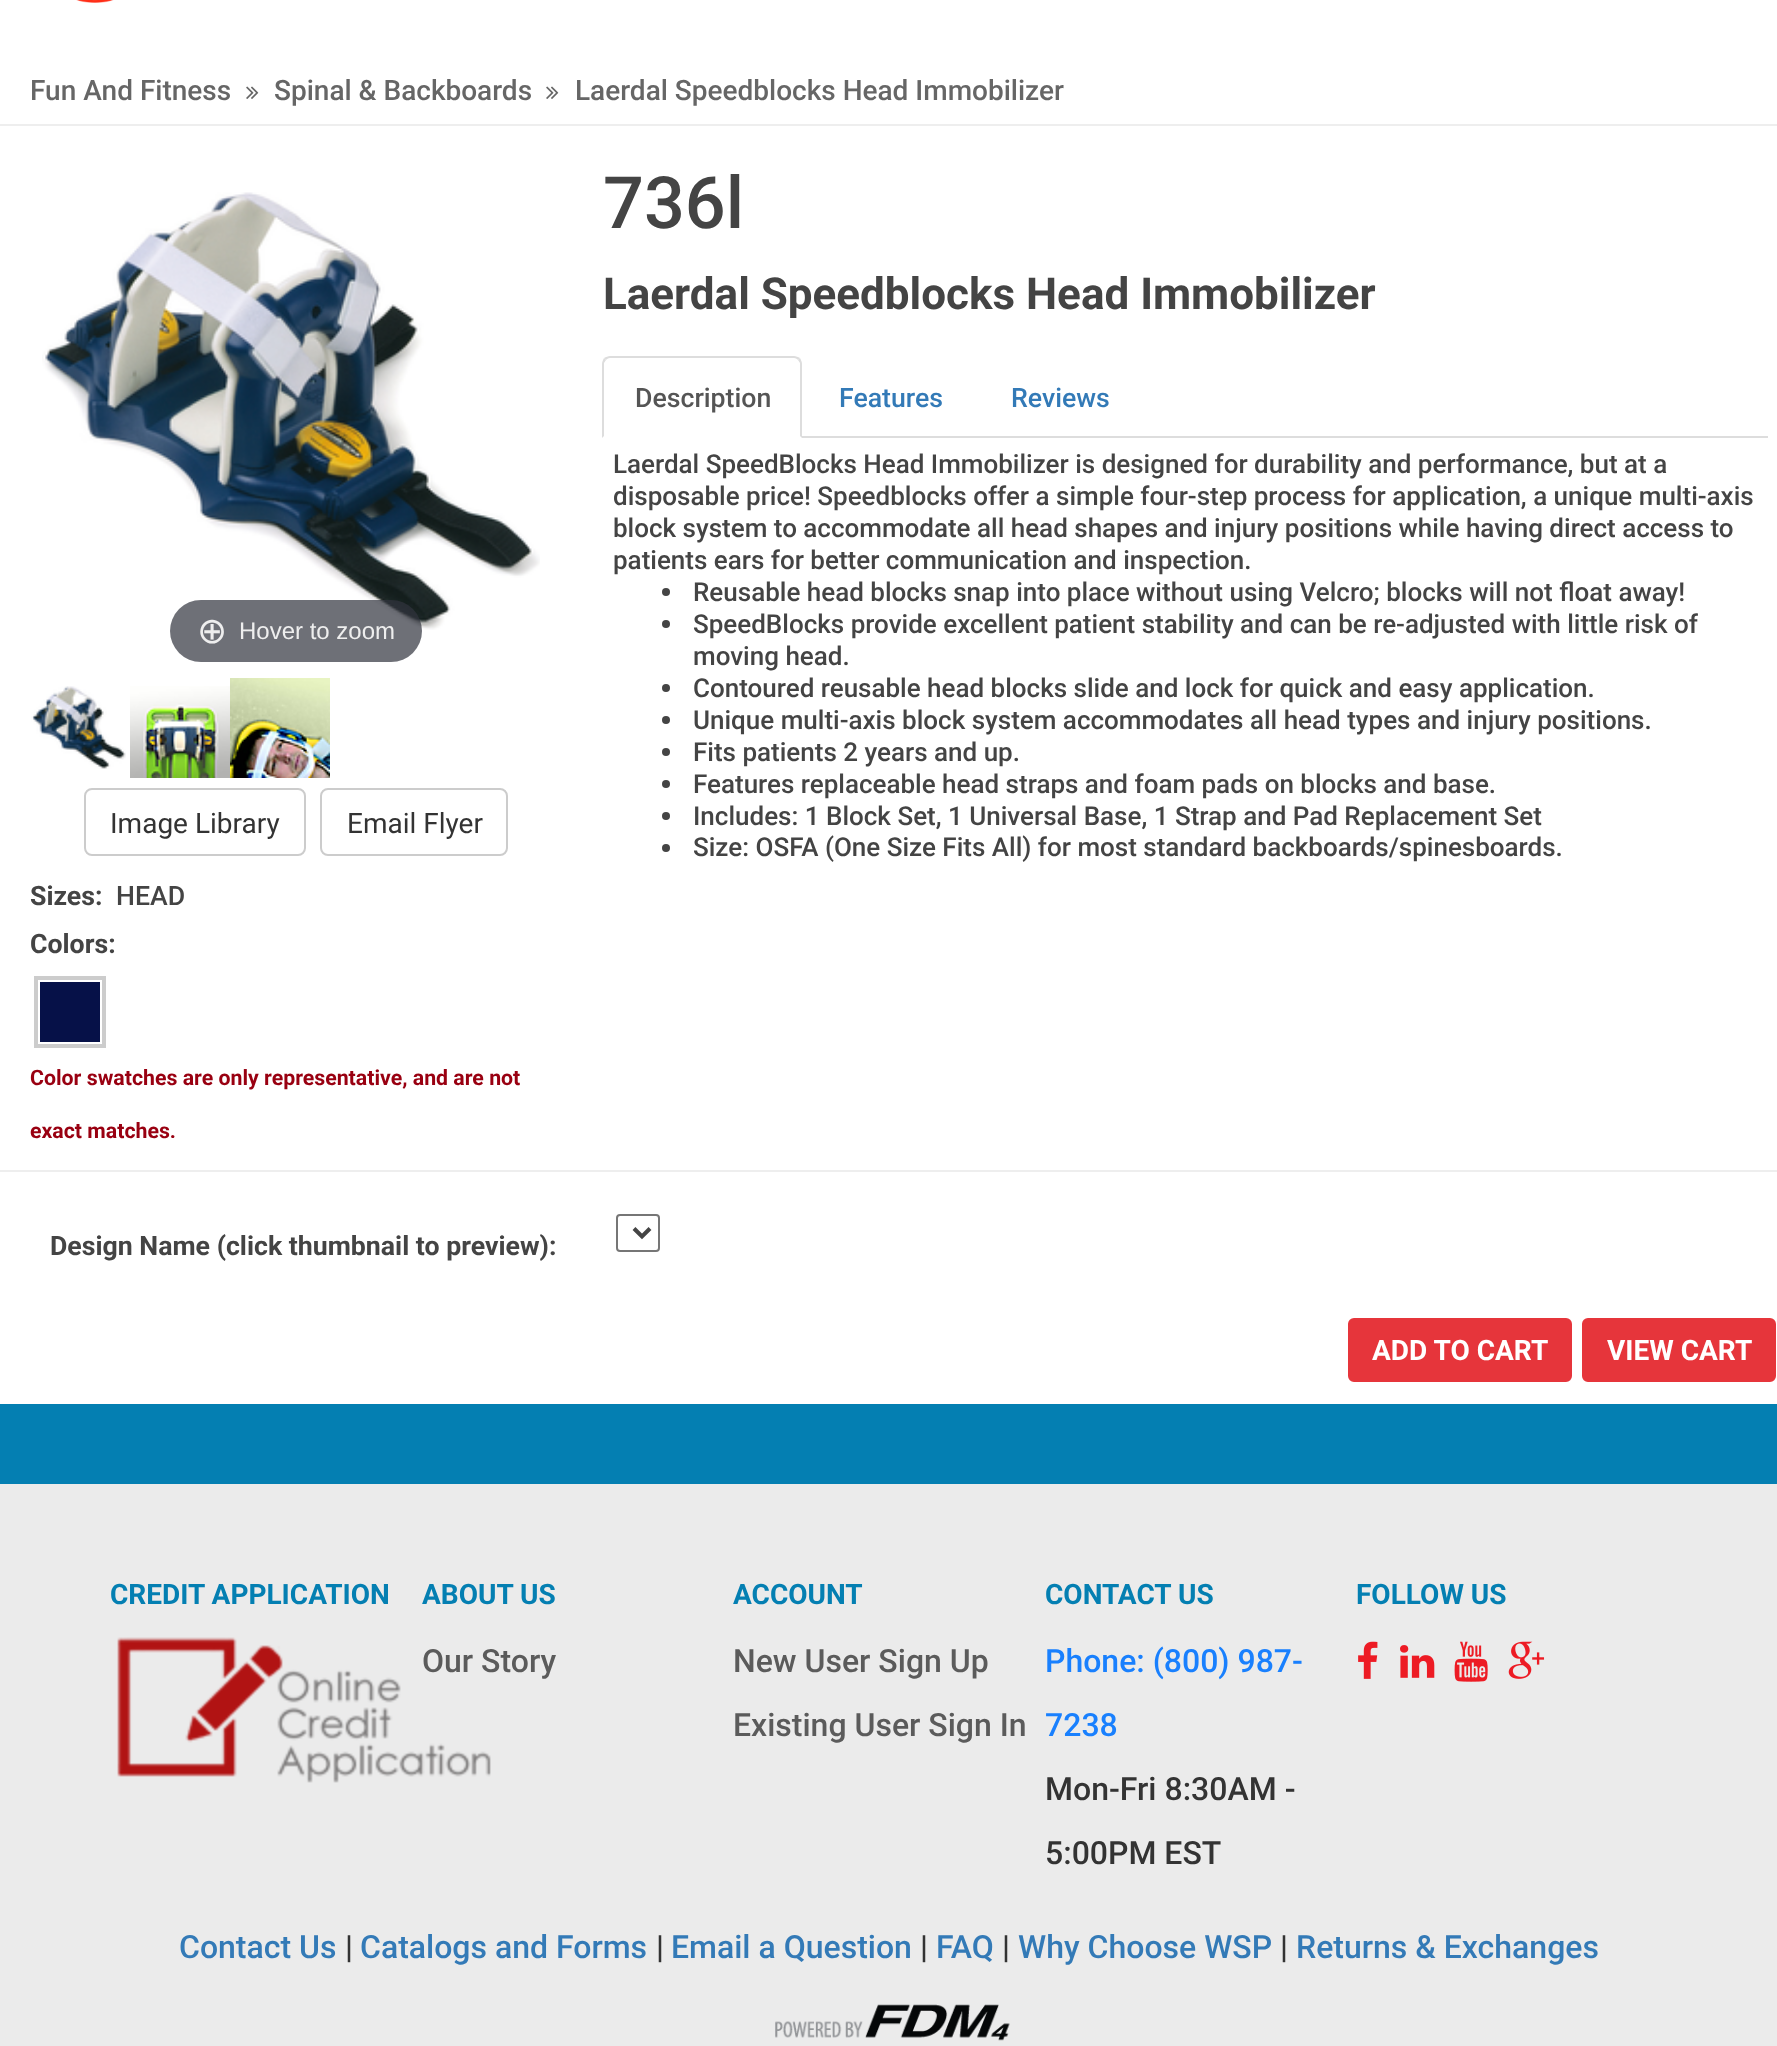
<!DOCTYPE html>
<meta charset="utf-8">
<style>body { margin: 0 } canvas { display: block }</style>
<canvas id="canvas" width="1777" height="2046"></canvas>
<script type="module">
  const canvas = document.getElementById("canvas");
  const ctx = canvas.getContext("2d");
  ctx.miterLimit = 4;
  ctx.fontKerning = "normal";
  async function loadImage(src) {
    const img = new Image();
    img.src = src;
    await img.decode();
    return img;
  }

  ctx.fillStyle = "#ffffff";
  ctx.fillRect(0, 0, 1777, 2046);
  ctx.drawImage(await loadImage("img1.png"), 76, 0, 38, 3);
  ctx.fillStyle = "#eeeeee";
  ctx.fillRect(0, 124, 1777, 2);
  ctx.font = "500 28px Roboto";
  ctx.fillStyle = "#666666";
  ctx.fillText("Fun And Fitness", 30, 100);
  ctx.drawImage(await loadImage("img2.png"), 246, 86, 13, 13);
  ctx.fillText("Spinal & Backboards", 274, 100);
  ctx.drawImage(await loadImage("img2.png"), 546, 86, 13, 13);
  ctx.fillText("Laerdal Speedblocks Head Immobilizer", 575, 100);
  ctx.drawImage(await loadImage("img3.png"), 42, 192, 498, 438);
  ctx.fillStyle = "rgba(49, 51, 61, 0.7)";
  ctx.beginPath();
  ctx.roundRect(170, 600, 252, 62, 31);
  ctx.fill();
  ctx.font = "36px DejaVu Sans";
  ctx.fillStyle = "#eeeeee";
  ctx.fillText("⊕", 197, 643);
  ctx.font = "24px Liberation Sans";
  ctx.fillText("Hover to zoom", 239, 639);
  ctx.drawImage(await loadImage("img4.png"), 31, 686, 95, 83);
  ctx.drawImage(await loadImage("img5.png"), 130, 686, 100, 92);
  ctx.drawImage(await loadImage("img6.png"), 230, 678, 100, 100);
  ctx.beginPath();
  ctx.roundRect(85, 789, 220, 66, 7);
  ctx.strokeStyle = "#cccccc";
  ctx.lineWidth = 2;
  ctx.stroke();
  ctx.font = "28px Roboto";
  ctx.fillStyle = "#333333";
  ctx.fillText("Image Library", 110, 833);
  ctx.beginPath();
  ctx.roundRect(321, 789, 186, 66, 7);
  ctx.stroke();
  ctx.fillText("Email Flyer", 347, 833);
  ctx.font = "bold 26.7px Roboto";
  ctx.fillStyle = "#444444";
  ctx.fillText("Sizes:", 30, 905);
  ctx.font = "500 26.7px Roboto";
  ctx.fillText("HEAD", 116, 905);
  ctx.font = "bold 26.7px Roboto";
  ctx.fillText("Colors:", 30, 953);
  ctx.lineWidth = 4;
  ctx.strokeRect(36, 978, 68, 68);
  ctx.fillStyle = "#061148";
  ctx.fillRect(40, 982, 60, 60);
  ctx.font = "bold 21.3px Roboto";
  ctx.fillStyle = "#990011";
  ctx.fillText("Color swatches are only representative, and are not", 30, 1085);
  ctx.fillText("exact matches.", 30, 1138);
  ctx.font = "500 72px Roboto";
  ctx.fillStyle = "#444444";
  ctx.fillText("736l", 603, 228);
  ctx.font = "bold 44px Roboto";
  ctx.fillText("Laerdal Speedblocks Head Immobilizer", 603, 309);
  ctx.fillStyle = "#dddddd";
  ctx.fillRect(802, 436, 966, 2);
  ctx.beginPath();
  ctx.moveTo(610, 356);
  ctx.bezierCurveTo(608, 356, 606, 357, 604, 358);
  ctx.lineTo(606, 360);
  ctx.bezierCurveTo(607, 359, 608, 358, 610, 358);
  ctx.lineTo(794, 358);
  ctx.bezierCurveTo(796, 358, 797, 359, 798, 360);
  ctx.lineTo(800, 358);
  ctx.bezierCurveTo(798, 357, 796, 356, 794, 356);
  ctx.closePath();
  ctx.fill();
  ctx.beginPath();
  ctx.moveTo(802, 438);
  ctx.lineTo(802, 364);
  ctx.bezierCurveTo(802, 362, 801, 360, 800, 358);
  ctx.lineTo(798, 360);
  ctx.lineTo(800, 363);
  ctx.lineTo(800, 436);
  ctx.closePath();
  ctx.fill();
  ctx.beginPath();
  ctx.moveTo(602, 438);
  ctx.lineTo(604, 436);
  ctx.lineTo(604, 363);
  ctx.lineTo(606, 360);
  ctx.lineTo(604, 358);
  ctx.bezierCurveTo(603, 360, 602, 362, 602, 364);
  ctx.closePath();
  ctx.fill();
  ctx.font = "500 26.7px Roboto";
  ctx.fillStyle = "#555555";
  ctx.fillText("Description", 635, 407);
  ctx.fillStyle = "#337ab7";
  ctx.fillText("Features", 839, 407);
  ctx.fillText("Reviews", 1011, 407);
  ctx.font = "500 26px Roboto";
  ctx.fillStyle = "#444444";
  ctx.fillText("Laerdal SpeedBlocks Head Immobilizer is designed for durability and performance, but at a", 613, 473);
  ctx.fillText("disposable price! Speedblocks offer a simple four-step process for application, a unique multi-axis", 613, 505);
  ctx.fillText("block system to accommodate all head shapes and injury positions while having direct access to", 613, 537);
  ctx.fillText("patients ears for better communication and inspection.", 613, 569);
  ctx.beginPath();
  ctx.arc(666, 592, 4, 0, Math.PI * 2);
  ctx.fill();
  ctx.fillText("Reusable head blocks snap into place without using Velcro; blocks will not float away!", 693, 601);
  ctx.beginPath();
  ctx.arc(666, 624, 4, 0, Math.PI * 2);
  ctx.fill();
  ctx.fillText("SpeedBlocks provide excellent patient stability and can be re-adjusted with little risk of", 693, 633);
  ctx.fillText("moving head.", 693, 665);
  ctx.beginPath();
  ctx.arc(666, 688, 4, 0, Math.PI * 2);
  ctx.fill();
  ctx.fillText("Contoured reusable head blocks slide and lock for quick and easy application.", 693, 697);
  ctx.beginPath();
  ctx.arc(666, 720, 4, 0, Math.PI * 2);
  ctx.fill();
  ctx.fillText("Unique multi-axis block system accommodates all head types and injury positions.", 693, 729);
  ctx.beginPath();
  ctx.arc(666, 752, 4, 0, Math.PI * 2);
  ctx.fill();
  ctx.fillText("Fits patients 2 years and up.", 693, 761);
  ctx.beginPath();
  ctx.arc(666, 784, 4, 0, Math.PI * 2);
  ctx.fill();
  ctx.fillText("Features replaceable head straps and foam pads on blocks and base.", 693, 793);
  ctx.beginPath();
  ctx.arc(666, 816, 4, 0, Math.PI * 2);
  ctx.fill();
  ctx.fillText("Includes: 1 Block Set, 1 Universal Base, 1 Strap and Pad Replacement Set", 693, 825);
  ctx.beginPath();
  ctx.arc(666, 848, 4, 0, Math.PI * 2);
  ctx.fill();
  ctx.fillText("Size: OSFA (One Size Fits All) for most standard backboards/spinesboards.", 693, 856);
  ctx.fillStyle = "#eeeeee";
  ctx.fillRect(0, 1170, 1777, 2);
  ctx.font = "bold 26.7px Roboto";
  ctx.fillStyle = "#444444";
  ctx.fillText("Design Name (click thumbnail to preview):", 50, 1255);
  ctx.beginPath();
  ctx.roundRect(617, 1215, 42, 36, 3);
  ctx.strokeStyle = "#767676";
  ctx.lineWidth = 2;
  ctx.stroke();
  ctx.beginPath();
  ctx.moveTo(634, 1228.5);
  ctx.lineTo(642, 1236.5);
  ctx.lineTo(650, 1228.5);
  ctx.strokeStyle = "#444444";
  ctx.lineWidth = 4;
  ctx.stroke();
  ctx.fillStyle = "#e6353b";
  ctx.beginPath();
  ctx.roundRect(1347, 1317, 226, 66, 7);
  ctx.fill();
  ctx.strokeStyle = "#ffffff";
  ctx.lineWidth = 2;
  ctx.stroke();
  ctx.font = "bold 28px Roboto";
  ctx.fillStyle = "#ffffff";
  ctx.fillText("ADD TO CART", 1372, 1360);
  ctx.fillStyle = "#e6353b";
  ctx.beginPath();
  ctx.roundRect(1581, 1317, 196, 66, 7);
  ctx.fill();
  ctx.stroke();
  ctx.fillStyle = "#ffffff";
  ctx.fillText("VIEW CART", 1607, 1360);
  ctx.fillStyle = "#ebebeb";
  ctx.fillRect(0, 1484, 1777, 562);
  ctx.fillStyle = "#047fb2";
  ctx.fillRect(0, 1404, 1777, 80);
  ctx.fillText("CREDIT APPLICATION", 110, 1604);
  ctx.drawImage(await loadImage("img7.png"), 117, 1637, 374, 146);
  ctx.fillText("ABOUT US", 422, 1604);
  ctx.font = "500 32px Roboto";
  ctx.fillStyle = "#5b5b5b";
  ctx.fillText("Our Story", 422, 1672);
  ctx.font = "bold 28px Roboto";
  ctx.fillStyle = "#047fb2";
  ctx.fillText("ACCOUNT", 733, 1604);
  ctx.font = "500 32px Roboto";
  ctx.fillStyle = "#5b5b5b";
  ctx.fillText("New User Sign Up", 733, 1672);
  ctx.fillText("Existing User Sign In", 733, 1736);
  ctx.font = "bold 28px Roboto";
  ctx.fillStyle = "#047fb2";
  ctx.fillText("CONTACT US", 1045, 1604);
  ctx.font = "500 32px Roboto";
  ctx.fillStyle = "#1980fe";
  ctx.fillText("Phone: (800) 987-", 1045, 1672);
  ctx.fillText("7238", 1045, 1736);
  ctx.fillStyle = "#333333";
  ctx.fillText("Mon-Fri 8:30AM -", 1045, 1800);
  ctx.fillText("5:00PM EST", 1045, 1864);
  ctx.font = "bold 28px Roboto";
  ctx.fillStyle = "#047fb2";
  ctx.fillText("FOLLOW US", 1356, 1604);
  ctx.drawImage(await loadImage("img8.png"), 1358, 1641, 20, 38);
  ctx.drawImage(await loadImage("img9.png"), 1400, 1645, 35, 33);
  ctx.drawImage(await loadImage("img10.png"), 1454, 1641, 34, 41);
  ctx.drawImage(await loadImage("img11.png"), 1508, 1641, 37, 38);
  ctx.font = "500 32px Roboto";
  ctx.fillStyle = "#337ab7";
  ctx.fillText("Contact Us", 179, 1958);
  ctx.fillStyle = "#333333";
  ctx.fillText("|", 345, 1958);
  ctx.fillStyle = "#337ab7";
  ctx.fillText("Catalogs and Forms", 360, 1958);
  ctx.fillStyle = "#333333";
  ctx.fillText("|", 656, 1958);
  ctx.fillStyle = "#337ab7";
  ctx.fillText("Email a Question", 671, 1958);
  ctx.fillStyle = "#333333";
  ctx.fillText("|", 920, 1958);
  ctx.fillStyle = "#337ab7";
  ctx.fillText("FAQ", 936, 1958);
  ctx.fillStyle = "#333333";
  ctx.fillText("|", 1002, 1958);
  ctx.fillStyle = "#337ab7";
  ctx.fillText("Why Choose WSP", 1018, 1958);
  ctx.fillStyle = "#333333";
  ctx.fillText("|", 1280, 1958);
  ctx.fillStyle = "#337ab7";
  ctx.fillText("Returns & Exchanges", 1296, 1958);
  ctx.drawImage(await loadImage("img12.png"), 775, 2004, 235, 37);
</script>
